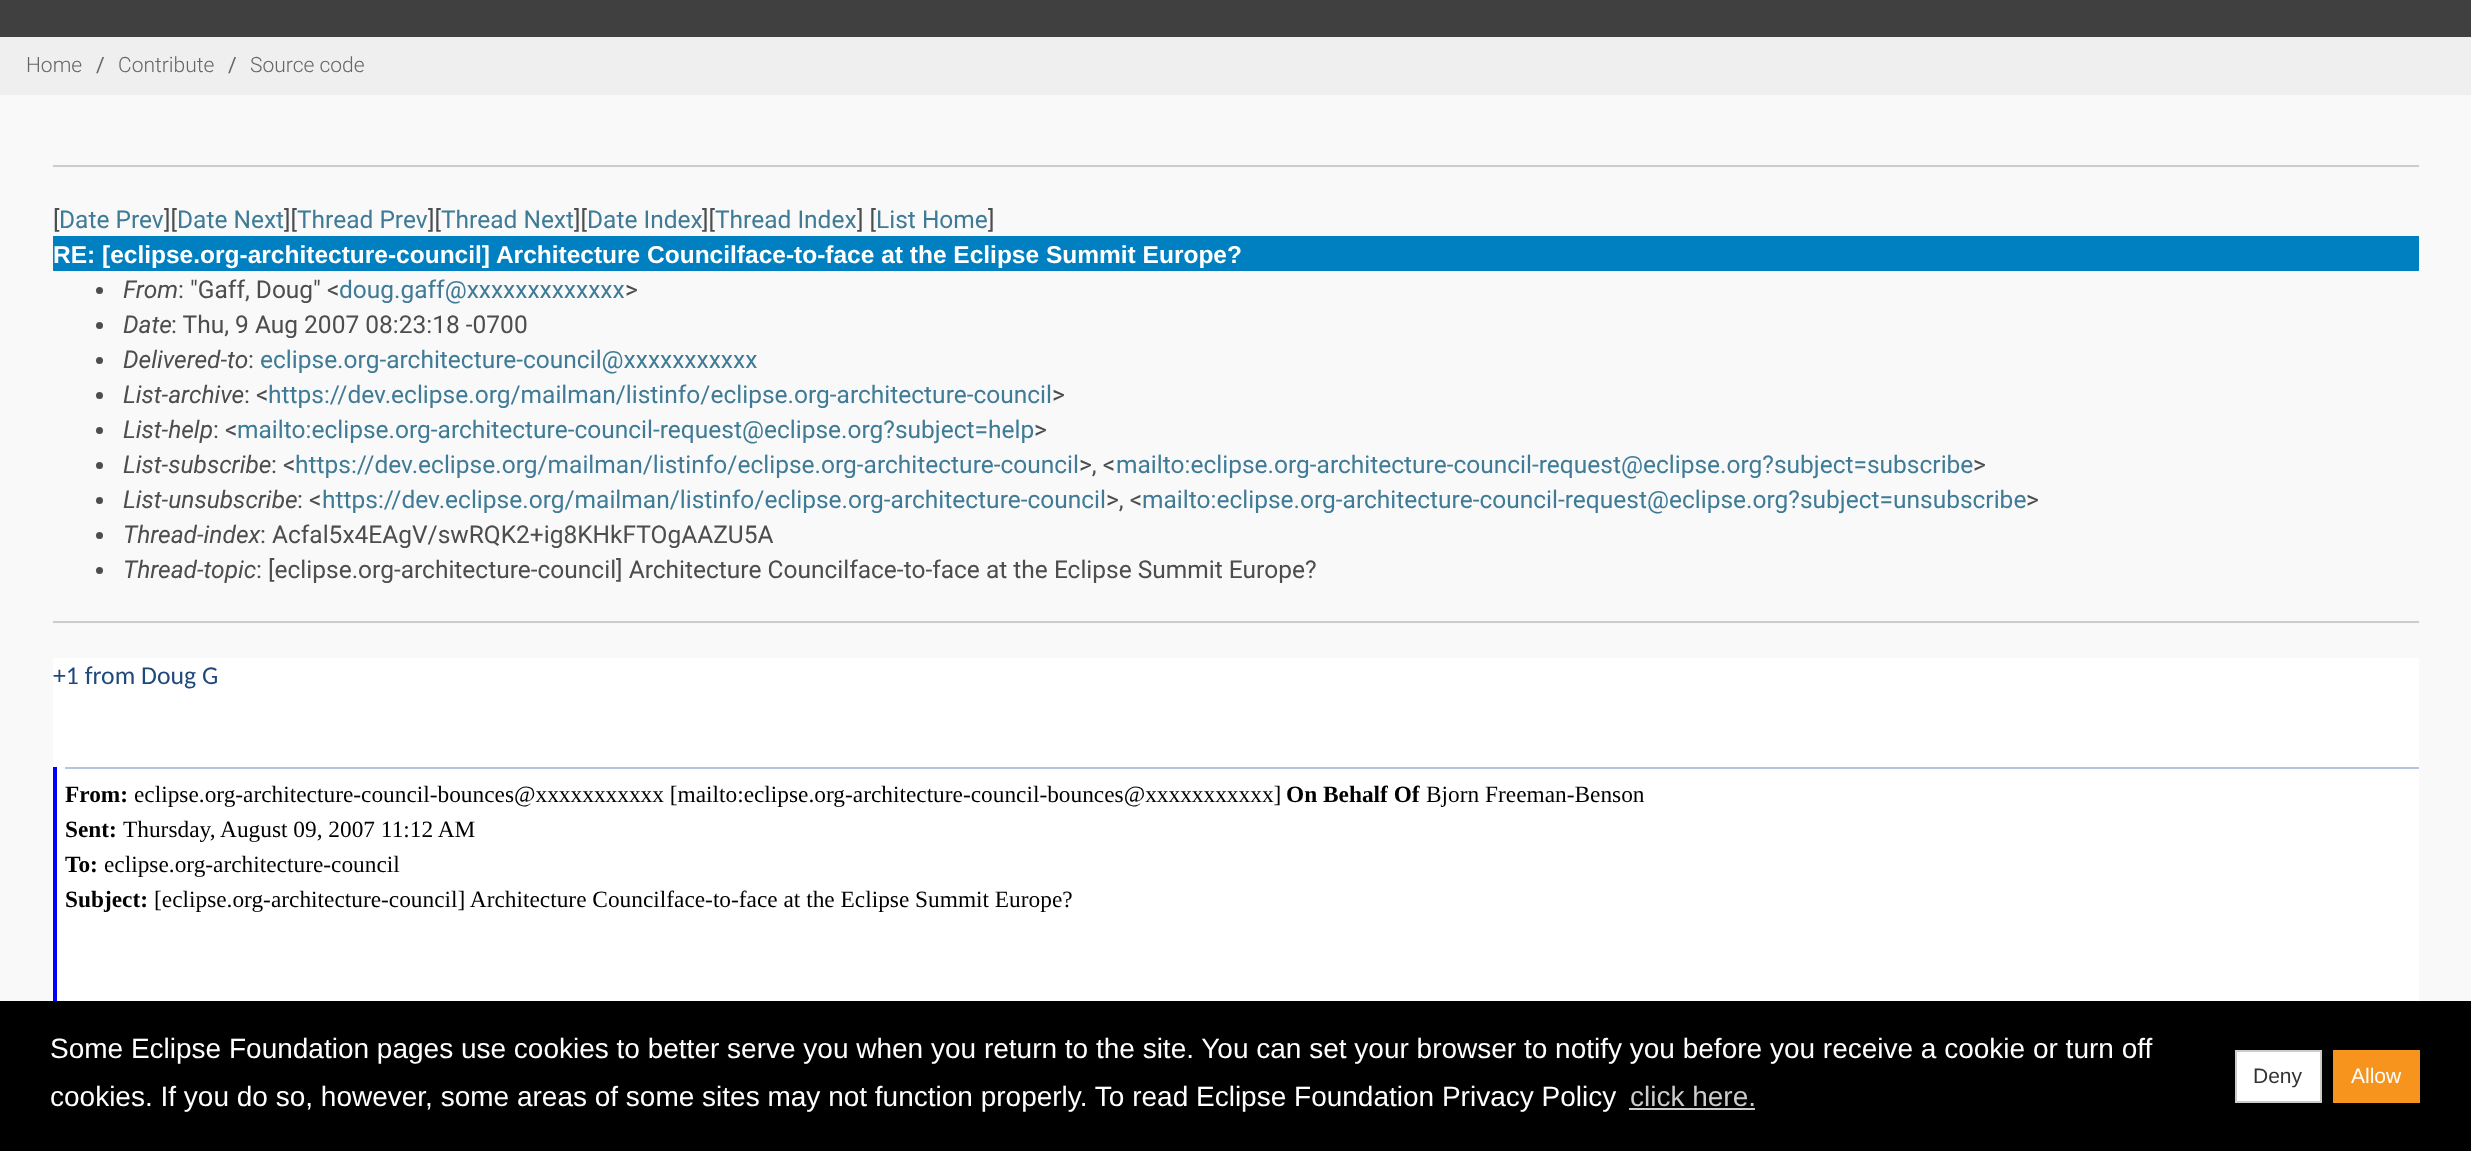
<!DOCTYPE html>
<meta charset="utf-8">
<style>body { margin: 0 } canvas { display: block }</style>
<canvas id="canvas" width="2471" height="1151"></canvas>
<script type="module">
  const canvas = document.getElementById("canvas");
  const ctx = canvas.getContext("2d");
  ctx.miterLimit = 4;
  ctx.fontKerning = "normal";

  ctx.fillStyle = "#f9f9f9";
  ctx.fillRect(0, 0, 2471, 1151);
  ctx.fillStyle = "#404040";
  ctx.fillRect(0, 0, 2471, 37);
  ctx.fillStyle = "#efefef";
  ctx.fillRect(0, 37, 2471, 58);
  ctx.font = "300 21px Roboto";
  ctx.fillStyle = "#656668";
  ctx.fillText("Home", 26, 72);
  ctx.font = "21px Roboto";
  ctx.fillText("/", 96, 72);
  ctx.font = "300 21px Roboto";
  ctx.fillText("Contribute", 118, 72);
  ctx.font = "21px Roboto";
  ctx.fillText("/", 228, 72);
  ctx.font = "300 21px Roboto";
  ctx.fillText("Source code", 250, 72);
  ctx.fillStyle = "#cccccc";
  ctx.fillRect(53, 165, 2366, 2);
  ctx.font = "24.5px Roboto";
  ctx.fillStyle = "#4c4d4e";
  ctx.fillText("[", 53, 228);
  ctx.fillStyle = "#3f7b96";
  ctx.fillText("Date Prev", 59, 228);
  ctx.fillStyle = "#4c4d4e";
  ctx.fillText("][", 164, 228);
  ctx.fillStyle = "#3f7b96";
  ctx.fillText("Date Next", 177, 228);
  ctx.fillStyle = "#4c4d4e";
  ctx.fillText("][", 284, 228);
  ctx.fillStyle = "#3f7b96";
  ctx.fillText("Thread Prev", 297, 228);
  ctx.fillStyle = "#4c4d4e";
  ctx.fillText("][", 428, 228);
  ctx.fillStyle = "#3f7b96";
  ctx.fillText("Thread Next", 441, 228);
  ctx.fillStyle = "#4c4d4e";
  ctx.fillText("][", 574, 228);
  ctx.fillStyle = "#3f7b96";
  ctx.fillText("Date Index", 587, 228);
  ctx.fillStyle = "#4c4d4e";
  ctx.fillText("][", 702, 228);
  ctx.fillStyle = "#3f7b96";
  ctx.fillText("Thread Index", 715, 228);
  ctx.fillStyle = "#4c4d4e";
  ctx.fillText("] [", 857, 228);
  ctx.fillStyle = "#3f7b96";
  ctx.fillText("List Home", 876, 228);
  ctx.fillStyle = "#4c4d4e";
  ctx.fillText("]", 988, 228);
  ctx.fillStyle = "#0080c0";
  ctx.fillRect(53, 236, 2366, 35);
  ctx.font = "bold 24.5px Liberation Sans";
  ctx.fillStyle = "#ffffff";
  ctx.fillText("RE: [eclipse.org-architecture-council] Architecture Councilface-to-face at the Eclipse Summit Europe?", 53, 263);
  ctx.fillStyle = "#4c4d4e";
  ctx.beginPath();
  ctx.arc(99.5, 290.5, 3.5, 0, Math.PI * 2);
  ctx.fill();
  ctx.font = "italic 24.5px Roboto";
  ctx.fillText("From", 123, 298);
  ctx.font = "24.5px Roboto";
  ctx.fillText(": \"Gaff, Doug\" <", 178, 298);
  ctx.fillStyle = "#3f7b96";
  ctx.fillText("doug.gaff@xxxxxxxxxxxxx", 339, 298);
  ctx.fillStyle = "#4c4d4e";
  ctx.fillText(">", 625, 298);
  ctx.beginPath();
  ctx.arc(99.5, 325.5, 3.5, 0, Math.PI * 2);
  ctx.fill();
  ctx.font = "italic 24.5px Roboto";
  ctx.fillText("Date", 123, 333);
  ctx.font = "24.5px Roboto";
  ctx.fillText(": Thu, 9 Aug 2007 08:23:18 -0700", 171, 333);
  ctx.beginPath();
  ctx.arc(99.5, 360.5, 3.5, 0, Math.PI * 2);
  ctx.fill();
  ctx.font = "italic 24.5px Roboto";
  ctx.fillText("Delivered-to", 123, 368);
  ctx.font = "24.5px Roboto";
  ctx.fillText(":", 248, 368);
  ctx.fillStyle = "#3f7b96";
  ctx.fillText("eclipse.org-architecture-council@xxxxxxxxxxx", 260, 368);
  ctx.fillStyle = "#4c4d4e";
  ctx.beginPath();
  ctx.arc(99.5, 395.5, 3.5, 0, Math.PI * 2);
  ctx.fill();
  ctx.font = "italic 24.5px Roboto";
  ctx.fillText("List-archive", 123, 403);
  ctx.font = "24.5px Roboto";
  ctx.fillText(": <", 244, 403);
  ctx.fillStyle = "#3f7b96";
  ctx.fillText("https://dev.eclipse.org/mailman/listinfo/eclipse.org-architecture-council", 268, 403);
  ctx.fillStyle = "#4c4d4e";
  ctx.fillText(">", 1052, 403);
  ctx.beginPath();
  ctx.arc(99.5, 430.5, 3.5, 0, Math.PI * 2);
  ctx.fill();
  ctx.font = "italic 24.5px Roboto";
  ctx.fillText("List-help", 123, 438);
  ctx.font = "24.5px Roboto";
  ctx.fillText(": <", 213, 438);
  ctx.fillStyle = "#3f7b96";
  ctx.fillText("mailto:eclipse.org-architecture-council-request@eclipse.org?subject=help", 237, 438);
  ctx.fillStyle = "#4c4d4e";
  ctx.fillText(">", 1034, 438);
  ctx.beginPath();
  ctx.arc(99.5, 465.5, 3.5, 0, Math.PI * 2);
  ctx.fill();
  ctx.font = "italic 24.5px Roboto";
  ctx.fillText("List-subscribe", 123, 473);
  ctx.font = "24.5px Roboto";
  ctx.fillText(": <", 271, 473);
  ctx.fillStyle = "#3f7b96";
  ctx.fillText("https://dev.eclipse.org/mailman/listinfo/eclipse.org-architecture-council", 295, 473);
  ctx.fillStyle = "#4c4d4e";
  ctx.fillText(">, <", 1079, 473);
  ctx.fillStyle = "#3f7b96";
  ctx.fillText("mailto:eclipse.org-architecture-council-request@eclipse.org?subject=subscribe", 1116, 473);
  ctx.fillStyle = "#4c4d4e";
  ctx.fillText(">", 1973, 473);
  ctx.beginPath();
  ctx.arc(99.5, 500.5, 3.5, 0, Math.PI * 2);
  ctx.fill();
  ctx.font = "italic 24.5px Roboto";
  ctx.fillText("List-unsubscribe", 123, 508);
  ctx.font = "24.5px Roboto";
  ctx.fillText(": <", 297, 508);
  ctx.fillStyle = "#3f7b96";
  ctx.fillText("https://dev.eclipse.org/mailman/listinfo/eclipse.org-architecture-council", 322, 508);
  ctx.fillStyle = "#4c4d4e";
  ctx.fillText(">, <", 1106, 508);
  ctx.fillStyle = "#3f7b96";
  ctx.fillText("mailto:eclipse.org-architecture-council-request@eclipse.org?subject=unsubscribe", 1142, 508);
  ctx.fillStyle = "#4c4d4e";
  ctx.fillText(">", 2026, 508);
  ctx.beginPath();
  ctx.arc(99.5, 535.5, 3.5, 0, Math.PI * 2);
  ctx.fill();
  ctx.font = "italic 24.5px Roboto";
  ctx.fillText("Thread-index", 123, 543);
  ctx.font = "24.5px Roboto";
  ctx.fillText(": Acfal5x4EAgV/swRQK2+ig8KHkFTOgAAZU5A", 260, 543);
  ctx.beginPath();
  ctx.arc(99.5, 570.5, 3.5, 0, Math.PI * 2);
  ctx.fill();
  ctx.font = "italic 24.5px Roboto";
  ctx.fillText("Thread-topic", 123, 578);
  ctx.font = "24.5px Roboto";
  ctx.fillText(": [eclipse.org-architecture-council] Architecture Councilface-to-face at the Eclipse Summit Europe?", 256, 578);
  ctx.fillStyle = "#cccccc";
  ctx.fillRect(53, 621, 2366, 2);
  ctx.fillStyle = "#ffffff";
  ctx.fillRect(53, 658, 2366, 343);
  ctx.font = "25.75px Carlito";
  ctx.fillStyle = "#1f497d";
  ctx.fillText("+1 from Doug G", 53, 684);
  ctx.fillStyle = "#0000ff";
  ctx.fillRect(53, 767, 4, 234);
  ctx.fillStyle = "#b5c4df";
  ctx.fillRect(65, 767, 2354, 2);
  ctx.font = "bold 23.35px Liberation Serif";
  ctx.fillStyle = "#000000";
  ctx.fillText("From:", 65, 802);
  ctx.font = "23.35px Liberation Serif";
  ctx.fillText("eclipse.org-architecture-council-bounces@xxxxxxxxxxx [mailto:eclipse.org-architecture-council-bounces@xxxxxxxxxxx]", 134, 802);
  ctx.font = "bold 23.35px Liberation Serif";
  ctx.fillText("On Behalf Of", 1286, 802);
  ctx.font = "23.35px Liberation Serif";
  ctx.fillText("Bjorn Freeman-Benson", 1426, 802);
  ctx.font = "bold 23.35px Liberation Serif";
  ctx.fillText("Sent:", 65, 837);
  ctx.font = "23.35px Liberation Serif";
  ctx.fillText("Thursday, August 09, 2007 11:12 AM", 123, 837);
  ctx.font = "bold 23.35px Liberation Serif";
  ctx.fillText("To:", 65, 872);
  ctx.font = "23.35px Liberation Serif";
  ctx.fillText("eclipse.org-architecture-council", 104, 872);
  ctx.font = "bold 23.35px Liberation Serif";
  ctx.fillText("Subject:", 65, 907);
  ctx.font = "23.35px Liberation Serif";
  ctx.fillText("[eclipse.org-architecture-council] Architecture Councilface-to-face at the Eclipse Summit Europe?", 154, 907);
  ctx.fillRect(0, 1001, 2471, 150);
  ctx.font = "28px Liberation Sans";
  ctx.fillStyle = "#ffffff";
  ctx.fillText("Some Eclipse Foundation pages use cookies to better serve you when you return to the site. You can set your browser to notify you before you receive a cookie or turn off", 50, 1058);
  ctx.fillText("cookies. If you do so, however, some areas of some sites may not function properly. To read Eclipse Foundation Privacy Policy", 50, 1106);
  ctx.fillStyle = "#cccccc";
  ctx.fillText("click here.", 1630, 1106);
  ctx.fillRect(1629, 1108, 126, 2);
  ctx.fillStyle = "#ffffff";
  ctx.beginPath();
  ctx.rect(2236, 1051, 85, 51);
  ctx.fill();
  ctx.strokeStyle = "#cccccc";
  ctx.lineWidth = 2;
  ctx.stroke();
  ctx.font = "21px Liberation Sans";
  ctx.fillStyle = "#333333";
  ctx.fillText("Deny", 2253, 1083);
  ctx.fillStyle = "#f7941e";
  ctx.fillRect(2333, 1050, 87, 53);
  ctx.fillStyle = "#ffffff";
  ctx.fillText("Allow", 2351, 1083);
</script>
